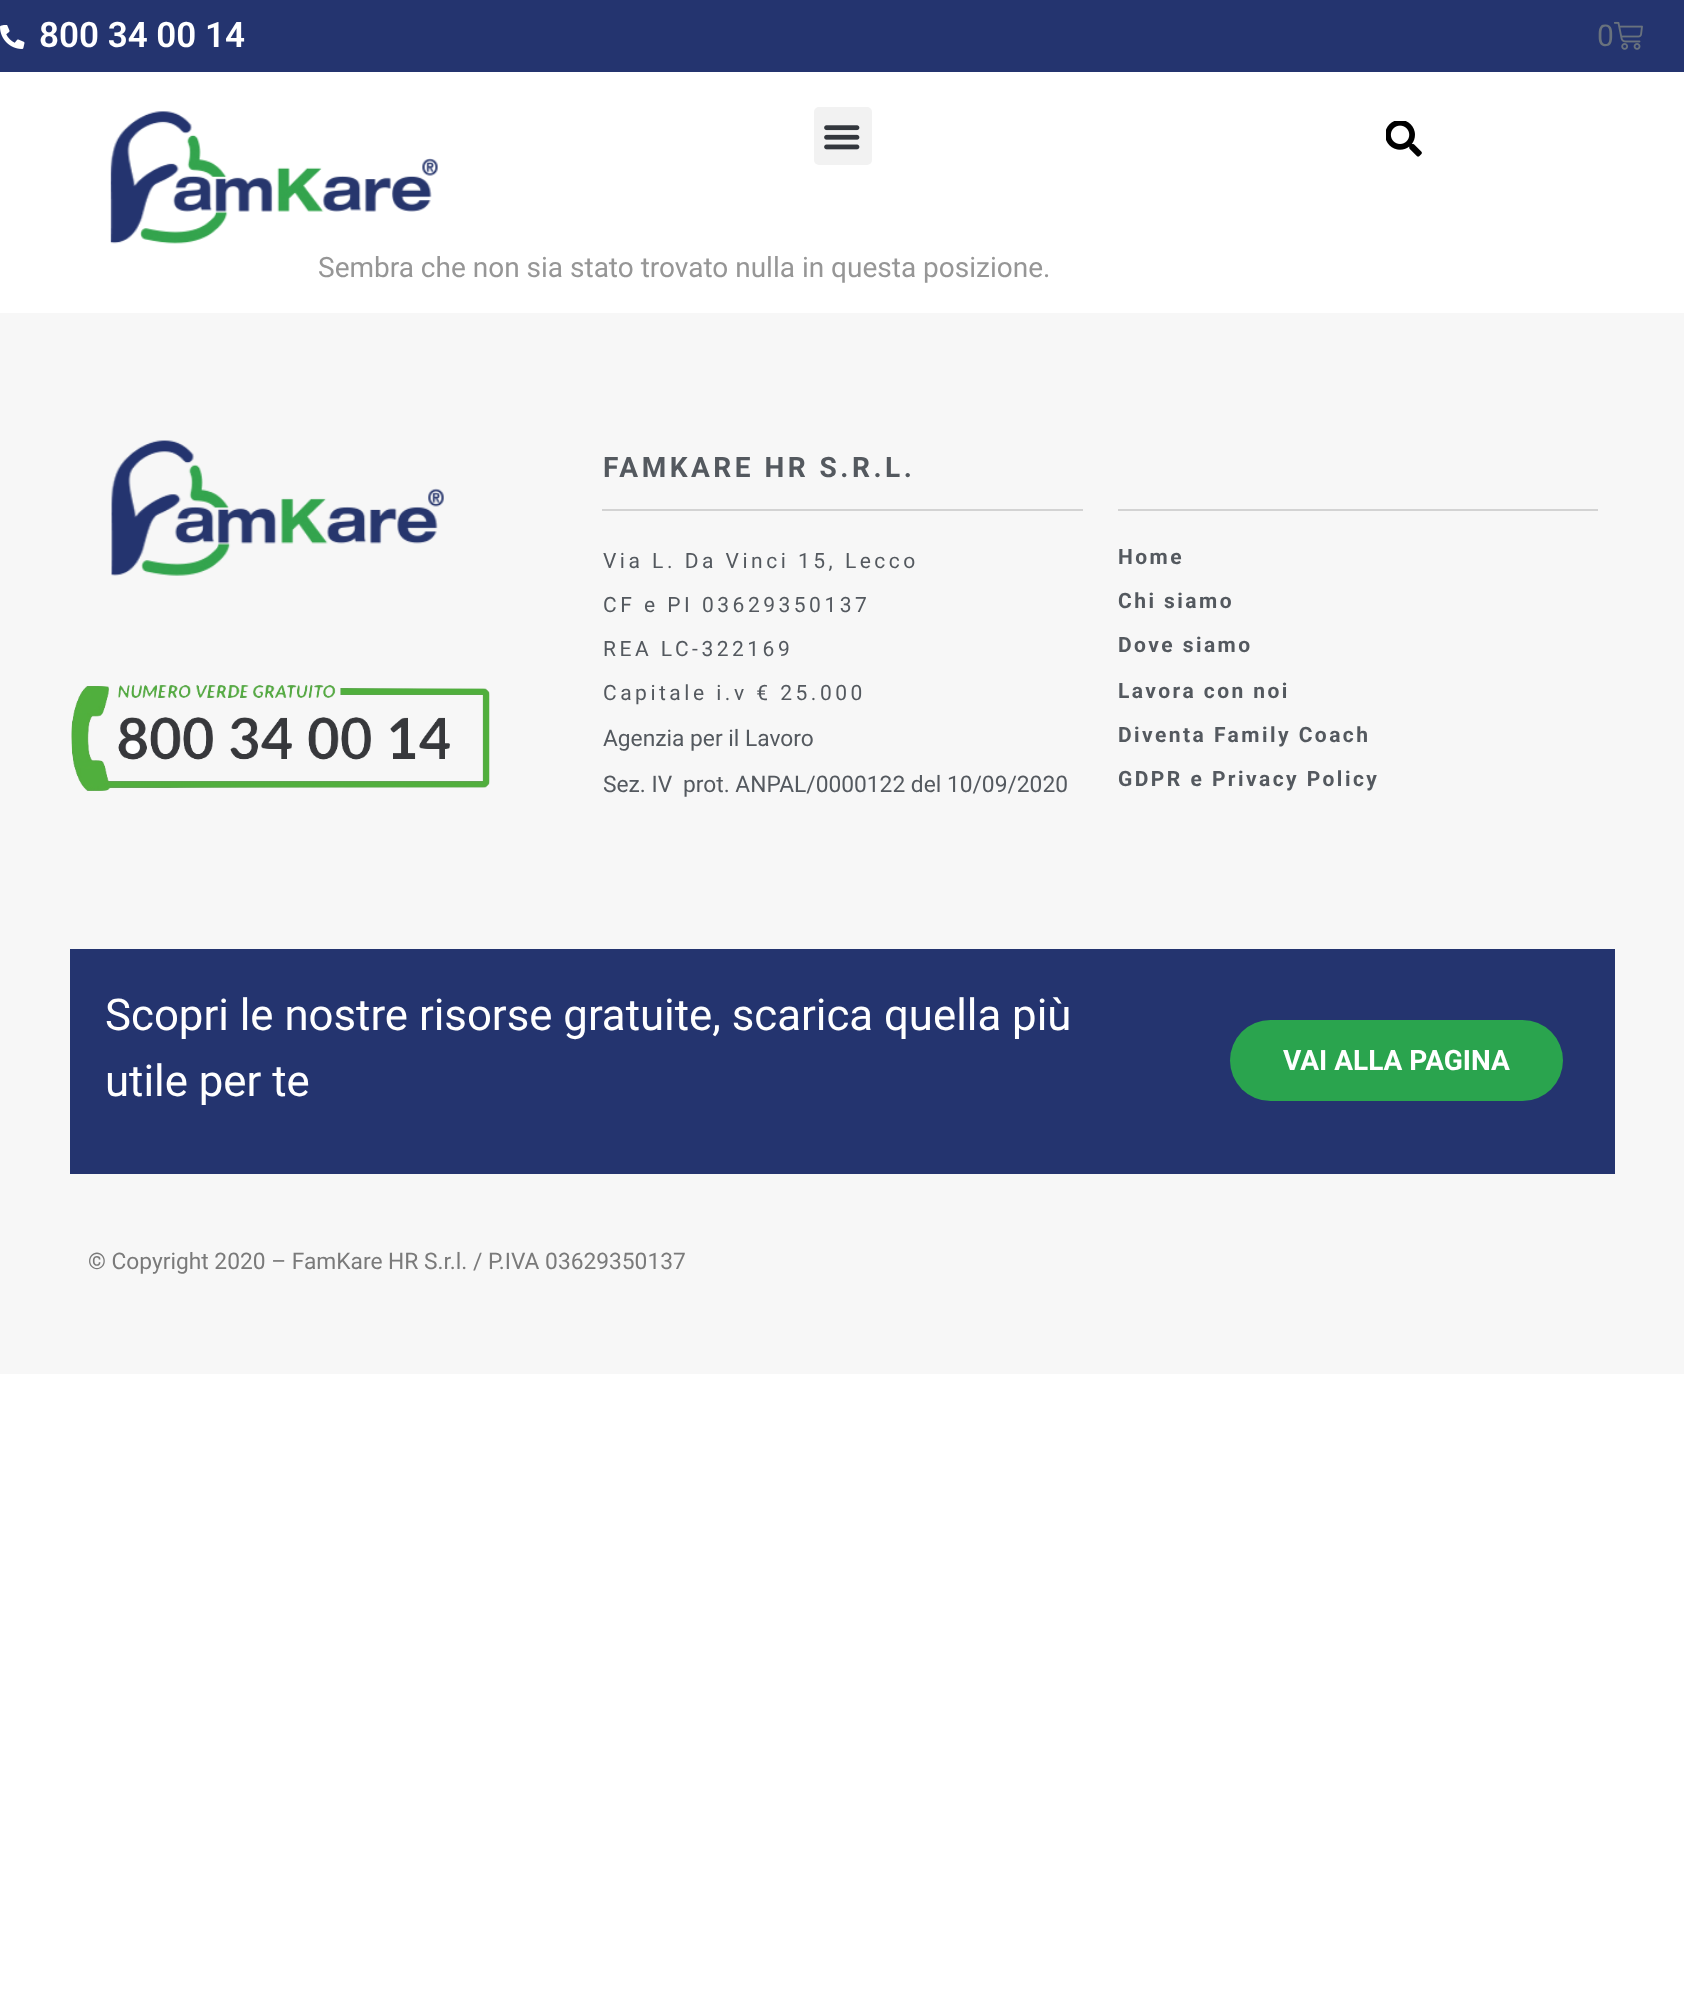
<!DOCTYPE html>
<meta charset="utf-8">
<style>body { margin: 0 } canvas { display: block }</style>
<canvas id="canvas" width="1684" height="1991"></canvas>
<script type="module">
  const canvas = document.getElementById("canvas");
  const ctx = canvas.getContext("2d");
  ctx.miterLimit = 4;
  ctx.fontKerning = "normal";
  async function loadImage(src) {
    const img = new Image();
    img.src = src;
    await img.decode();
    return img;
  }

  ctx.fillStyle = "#ffffff";
  ctx.fillRect(0, 0, 1684, 1991);
  ctx.fillStyle = "#24346f";
  ctx.fillRect(0, 0, 1684, 72);
  ctx.drawImage(await loadImage("img1.png"), 0, 25, 25, 24);
  ctx.font = "600 35px Roboto";
  ctx.fillStyle = "#ffffff";
  ctx.fillText("800 34 00 14", 39, 47);
  ctx.font = "30px Roboto";
  ctx.fillStyle = "#69727d";
  ctx.fillText("0", 1597, 46);
  ctx.drawImage(await loadImage("img2.png"), 1614, 21, 29, 29);
  ctx.drawImage(await loadImage("img3.png"), 110, 111, 328, 133);
  ctx.fillStyle = "#f2f2f2";
  ctx.beginPath();
  ctx.roundRect(814, 107, 58, 58, 5);
  ctx.fill();
  ctx.drawImage(await loadImage("img4.png"), 824, 125, 36, 25);
  ctx.drawImage(await loadImage("img5.png"), 1386, 121, 36, 36);
  ctx.font = "28px Roboto";
  ctx.fillStyle = "#969696";
  ctx.fillText("Sembra che non sia stato trovato nulla in questa posizione.", 318, 277);
  ctx.fillStyle = "#f7f7f7";
  ctx.fillRect(0, 313, 1684, 1061);
  ctx.drawImage(await loadImage("img6.png"), 111, 440, 333, 136);
  ctx.drawImage(await loadImage("img7.png"), 71, 685, 419, 106);
  ctx.letterSpacing = "3.5px";
  ctx.font = "bold 28px Roboto";
  ctx.fillStyle = "#54595f";
  ctx.fillText("FAMKARE HR S.R.L.", 603, 477);
  ctx.fillStyle = "#d3d3d3";
  ctx.fillRect(602, 509, 481, 2);
  ctx.font = "21px Roboto";
  ctx.fillStyle = "#54595f";
  ctx.fillText("Via L. Da Vinci 15, Lecco", 603, 568);
  ctx.fillText("CF e PI 03629350137", 603, 612);
  ctx.fillText("REA LC-322169", 603, 656);
  ctx.fillText("Capitale i.v € 25.000", 603, 700);
  ctx.letterSpacing = "0px";
  ctx.font = "22.75px Roboto";
  ctx.fillText("Agenzia per il Lavoro", 603, 746);
  ctx.fillText("Sez. IV", 603, 792);
  ctx.fillText("prot. ANPAL/0000122 del 10/09/2020", 683, 792);
  ctx.fillStyle = "#d3d3d3";
  ctx.fillRect(1118, 509, 480, 2);
  ctx.letterSpacing = "2.45px";
  ctx.font = "bold 21px Roboto";
  ctx.fillStyle = "#54595f";
  ctx.fillText("Home", 1118, 564);
  ctx.fillText("Chi siamo", 1118, 608);
  ctx.fillText("Dove siamo", 1118, 652);
  ctx.fillText("Lavora con noi", 1118, 698);
  ctx.fillText("Diventa Family Coach", 1118, 742);
  ctx.fillText("GDPR e Privacy Policy", 1118, 786);
  ctx.fillStyle = "#24346f";
  ctx.fillRect(70, 949, 1545, 225);
  ctx.letterSpacing = "0px";
  ctx.font = "43.75px Roboto";
  ctx.fillStyle = "#ffffff";
  ctx.fillText("Scopri le nostre risorse gratuite, scarica quella più", 105, 1030);
  ctx.fillText("utile per te", 105, 1096);
  ctx.fillStyle = "#2aa44e";
  ctx.beginPath();
  ctx.roundRect(1230, 1020, 333, 81, 40.5);
  ctx.fill();
  ctx.font = "bold 28px Roboto";
  ctx.fillStyle = "#ffffff";
  ctx.fillText("VAI ALLA PAGINA", 1283, 1070);
  ctx.font = "22.75px Roboto";
  ctx.fillStyle = "#7a7a7a";
  ctx.fillText("© Copyright 2020 – FamKare HR S.r.l. / P.IVA 03629350137", 88, 1269);
</script>
